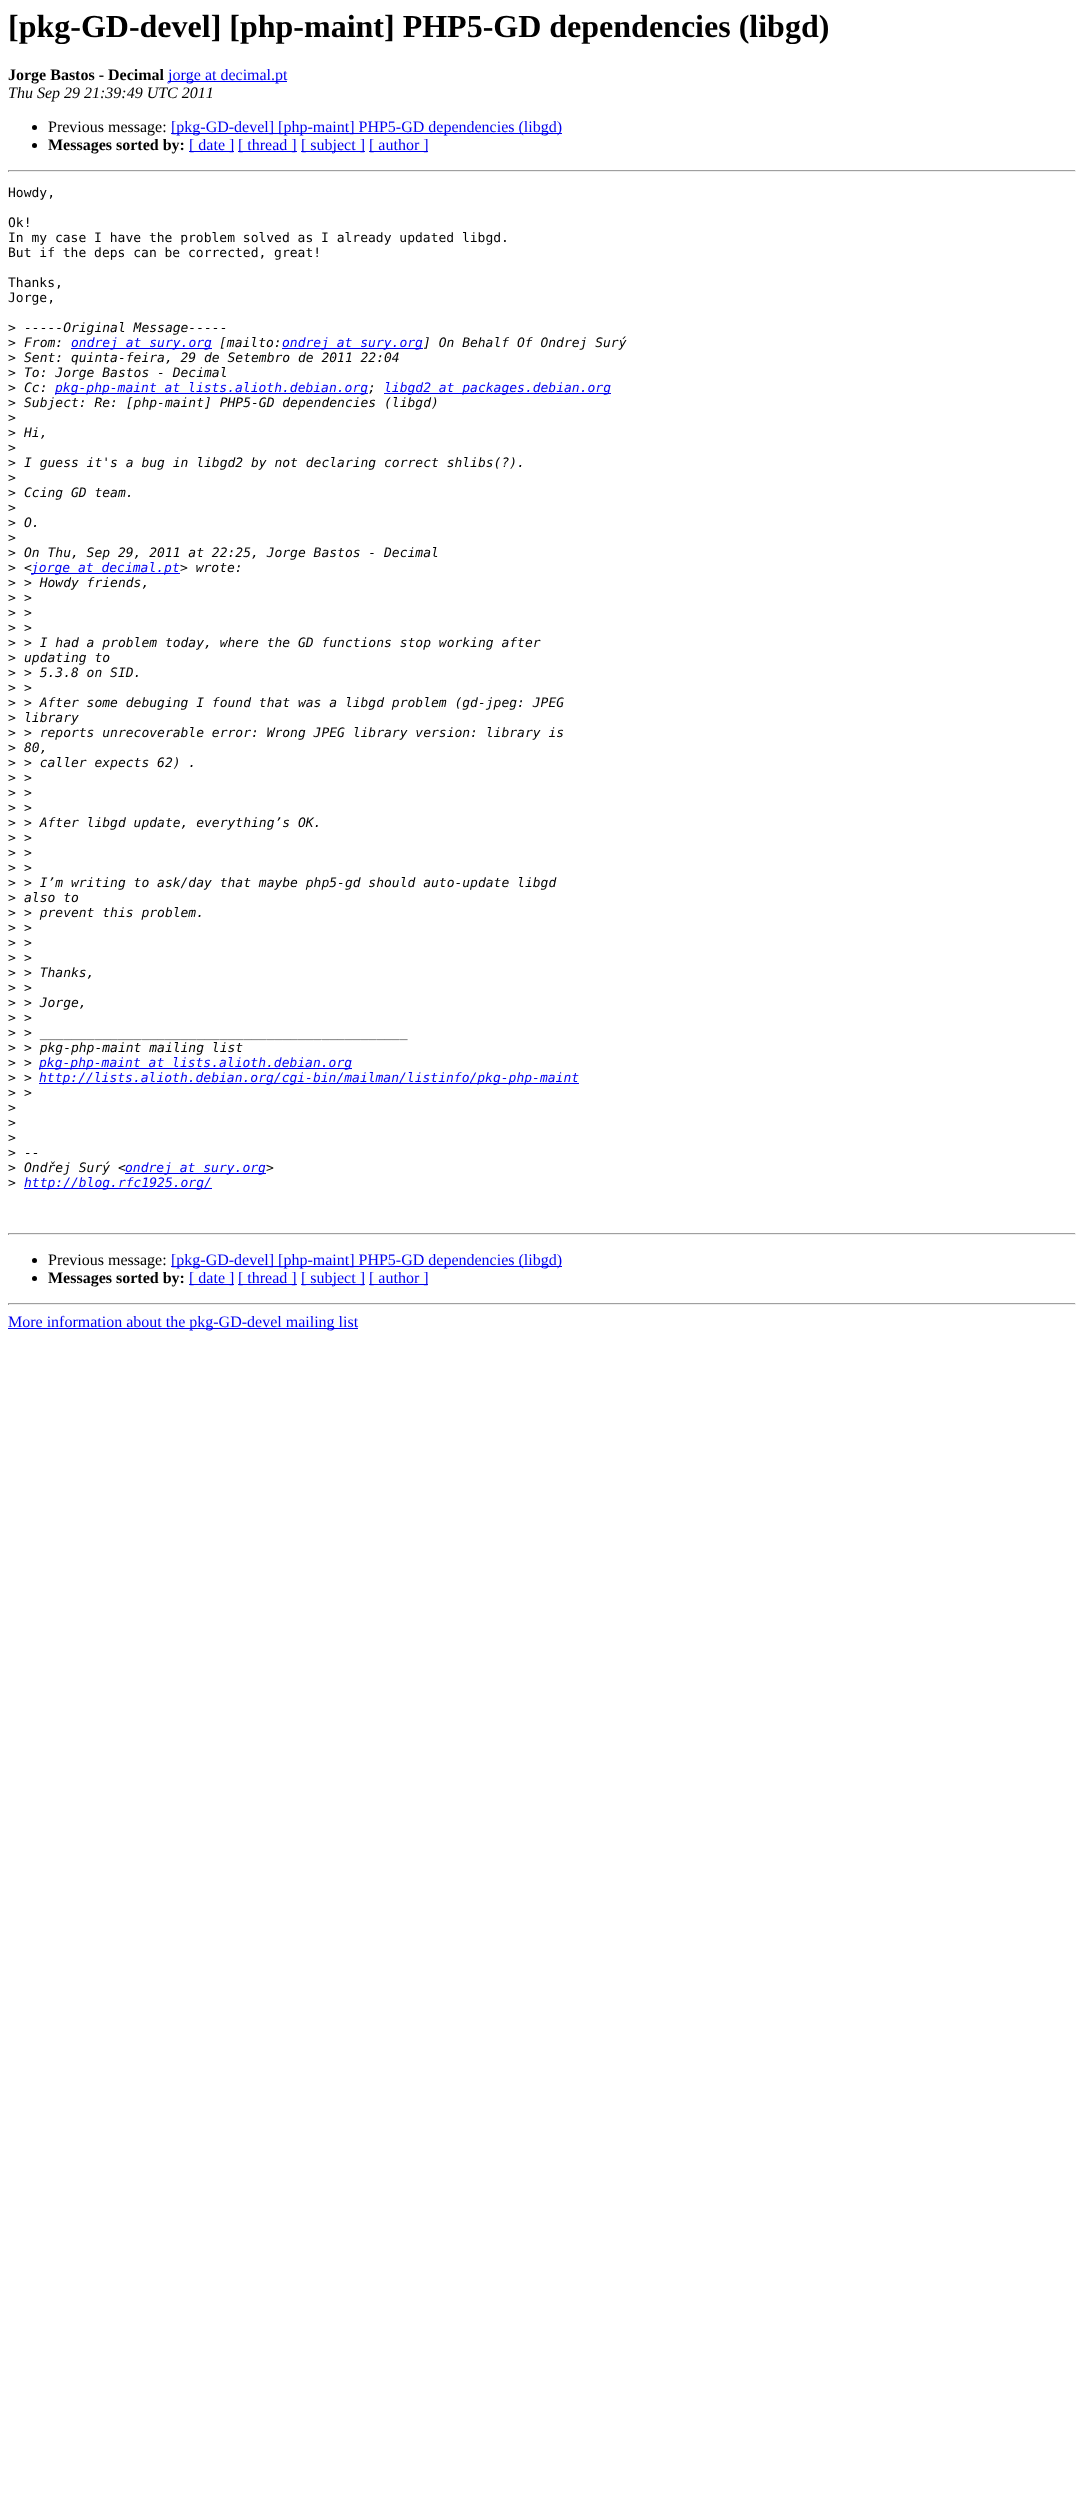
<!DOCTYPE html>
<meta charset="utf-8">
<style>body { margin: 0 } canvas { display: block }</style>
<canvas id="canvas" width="1084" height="2504"></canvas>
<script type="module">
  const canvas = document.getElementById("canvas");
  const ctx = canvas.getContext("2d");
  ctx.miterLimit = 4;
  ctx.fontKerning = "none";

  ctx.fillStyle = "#ffffff";
  ctx.fillRect(0, 0, 1084, 2504);
  ctx.font = "bold 32px Liberation Serif";
  ctx.fillStyle = "#000000";
  ctx.fillText("[pkg-GD-devel] [php-maint] PHP5-GD dependencies (libgd)", 8, 37);
  ctx.font = "bold 16px Liberation Serif";
  ctx.fillText("Jorge Bastos - Decimal", 8, 80);
  ctx.fillStyle = "#0000ee";
  ctx.fillRect(168, 81, 119, 1);
  ctx.font = "16px Liberation Serif";
  ctx.fillText("jorge at decimal.pt", 168, 80);
  ctx.font = "italic 16px Liberation Serif";
  ctx.fillStyle = "#000000";
  ctx.fillText("Thu Sep 29 21:39:49 UTC 2011", 8, 98);
  ctx.beginPath();
  ctx.arc(34.5, 127.5, 2.5, 0, Math.PI * 2);
  ctx.fill();
  ctx.font = "16px Liberation Serif";
  ctx.fillText("Previous message:", 48, 132);
  ctx.fillStyle = "#0000ee";
  ctx.fillRect(171, 133, 391, 1);
  ctx.fillText("[pkg-GD-devel] [php-maint] PHP5-GD dependencies (libgd)", 171, 132);
  ctx.fillStyle = "#000000";
  ctx.beginPath();
  ctx.arc(34.5, 145.5, 2.5, 0, Math.PI * 2);
  ctx.fill();
  ctx.font = "bold 16px Liberation Serif";
  ctx.fillText("Messages sorted by:", 48, 150);
  ctx.fillStyle = "#0000ee";
  ctx.fillRect(189, 151, 45, 1);
  ctx.font = "16px Liberation Serif";
  ctx.fillText("[ date ]", 189, 150);
  ctx.fillRect(238, 151, 59, 1);
  ctx.fillText("[ thread ]", 238, 150);
  ctx.fillRect(301, 151, 64, 1);
  ctx.fillText("[ subject ]", 301, 150);
  ctx.fillRect(369, 151, 59, 1);
  ctx.fillText("[ author ]", 369, 150);
  ctx.fillStyle = "#9f9f9f";
  ctx.fillRect(8, 170, 1068, 1);
  ctx.fillStyle = "#eeeeee";
  ctx.fillRect(1075, 170, 1, 2);
  ctx.fillRect(8, 171, 1068, 1);
  ctx.fillStyle = "#9f9f9f";
  ctx.fillRect(8, 170, 1, 2);
  ctx.font = "13px DejaVu Sans Mono";
  ctx.fillStyle = "#000000";
  ctx.fillText("Howdy,", 8, 197);
  ctx.fillText("Ok!", 8, 227);
  ctx.fillText("In my case I have the problem solved as I already updated libgd.", 8, 242);
  ctx.fillText("But if the deps can be corrected, great!", 8, 257);
  ctx.fillText("Thanks,", 8, 287);
  ctx.fillText("Jorge,", 8, 302);
  ctx.fillText(">", 8, 332);
  ctx.font = "italic 13px DejaVu Sans Mono";
  ctx.fillText("-----Original Message-----", 24, 332);
  ctx.font = "13px DejaVu Sans Mono";
  ctx.fillText(">", 8, 347);
  ctx.font = "italic 13px DejaVu Sans Mono";
  ctx.fillText("From:", 24, 347);
  ctx.fillStyle = "#0000ee";
  ctx.fillRect(71, 348, 141, 1);
  ctx.fillText("ondrej at sury.org", 71, 347);
  ctx.fillStyle = "#000000";
  ctx.fillText("[mailto:", 219, 347);
  ctx.fillStyle = "#0000ee";
  ctx.fillRect(282, 348, 141, 1);
  ctx.fillText("ondrej at sury.org", 282, 347);
  ctx.fillStyle = "#000000";
  ctx.fillText("] On Behalf Of Ondrej Surý", 423, 347);
  ctx.font = "13px DejaVu Sans Mono";
  ctx.fillText(">", 8, 362);
  ctx.font = "italic 13px DejaVu Sans Mono";
  ctx.fillText("Sent: quinta-feira, 29 de Setembro de 2011 22:04", 24, 362);
  ctx.font = "13px DejaVu Sans Mono";
  ctx.fillText(">", 8, 377);
  ctx.font = "italic 13px DejaVu Sans Mono";
  ctx.fillText("To: Jorge Bastos - Decimal", 24, 377);
  ctx.font = "13px DejaVu Sans Mono";
  ctx.fillText(">", 8, 392);
  ctx.font = "italic 13px DejaVu Sans Mono";
  ctx.fillText("Cc:", 24, 392);
  ctx.fillStyle = "#0000ee";
  ctx.fillRect(55, 393, 313, 1);
  ctx.fillText("pkg-php-maint at lists.alioth.debian.org", 55, 392);
  ctx.fillStyle = "#000000";
  ctx.fillText(";", 368, 392);
  ctx.fillStyle = "#0000ee";
  ctx.fillRect(384, 393, 227, 1);
  ctx.fillText("libgd2 at packages.debian.org", 384, 392);
  ctx.font = "13px DejaVu Sans Mono";
  ctx.fillStyle = "#000000";
  ctx.fillText(">", 8, 407);
  ctx.font = "italic 13px DejaVu Sans Mono";
  ctx.fillText("Subject: Re: [php-maint] PHP5-GD dependencies (libgd)", 24, 407);
  ctx.font = "13px DejaVu Sans Mono";
  ctx.fillText(">", 8, 422);
  ctx.fillText(">", 8, 437);
  ctx.font = "italic 13px DejaVu Sans Mono";
  ctx.fillText("Hi,", 24, 437);
  ctx.font = "13px DejaVu Sans Mono";
  ctx.fillText(">", 8, 452);
  ctx.fillText(">", 8, 467);
  ctx.font = "italic 13px DejaVu Sans Mono";
  ctx.fillText("I guess it's a bug in libgd2 by not declaring correct shlibs(?).", 24, 467);
  ctx.font = "13px DejaVu Sans Mono";
  ctx.fillText(">", 8, 482);
  ctx.fillText(">", 8, 497);
  ctx.font = "italic 13px DejaVu Sans Mono";
  ctx.fillText("Ccing GD team.", 24, 497);
  ctx.font = "13px DejaVu Sans Mono";
  ctx.fillText(">", 8, 512);
  ctx.fillText(">", 8, 527);
  ctx.font = "italic 13px DejaVu Sans Mono";
  ctx.fillText("O.", 24, 527);
  ctx.font = "13px DejaVu Sans Mono";
  ctx.fillText(">", 8, 542);
  ctx.fillText(">", 8, 557);
  ctx.font = "italic 13px DejaVu Sans Mono";
  ctx.fillText("On Thu, Sep 29, 2011 at 22:25, Jorge Bastos - Decimal", 24, 557);
  ctx.font = "13px DejaVu Sans Mono";
  ctx.fillText(">", 8, 572);
  ctx.font = "italic 13px DejaVu Sans Mono";
  ctx.fillText("<", 24, 572);
  ctx.fillStyle = "#0000ee";
  ctx.fillRect(31, 573, 149, 1);
  ctx.fillText("jorge at decimal.pt", 31, 572);
  ctx.fillStyle = "#000000";
  ctx.fillText("> wrote:", 180, 572);
  ctx.font = "13px DejaVu Sans Mono";
  ctx.fillText(">", 8, 587);
  ctx.font = "italic 13px DejaVu Sans Mono";
  ctx.fillText("> Howdy friends,", 24, 587);
  ctx.font = "13px DejaVu Sans Mono";
  ctx.fillText(">", 8, 602);
  ctx.font = "italic 13px DejaVu Sans Mono";
  ctx.fillText(">", 24, 602);
  ctx.font = "13px DejaVu Sans Mono";
  ctx.fillText(">", 8, 617);
  ctx.font = "italic 13px DejaVu Sans Mono";
  ctx.fillText(">", 24, 617);
  ctx.font = "13px DejaVu Sans Mono";
  ctx.fillText(">", 8, 632);
  ctx.font = "italic 13px DejaVu Sans Mono";
  ctx.fillText(">", 24, 632);
  ctx.font = "13px DejaVu Sans Mono";
  ctx.fillText(">", 8, 647);
  ctx.font = "italic 13px DejaVu Sans Mono";
  ctx.fillText("> I had a problem today, where the GD functions stop working after", 24, 647);
  ctx.font = "13px DejaVu Sans Mono";
  ctx.fillText(">", 8, 662);
  ctx.font = "italic 13px DejaVu Sans Mono";
  ctx.fillText("updating to", 24, 662);
  ctx.font = "13px DejaVu Sans Mono";
  ctx.fillText(">", 8, 677);
  ctx.font = "italic 13px DejaVu Sans Mono";
  ctx.fillText("> 5.3.8 on SID.", 24, 677);
  ctx.font = "13px DejaVu Sans Mono";
  ctx.fillText(">", 8, 692);
  ctx.font = "italic 13px DejaVu Sans Mono";
  ctx.fillText(">", 24, 692);
  ctx.font = "13px DejaVu Sans Mono";
  ctx.fillText(">", 8, 707);
  ctx.font = "italic 13px DejaVu Sans Mono";
  ctx.fillText("> After some debuging I found that was a libgd problem (gd-jpeg: JPEG", 24, 707);
  ctx.font = "13px DejaVu Sans Mono";
  ctx.fillText(">", 8, 722);
  ctx.font = "italic 13px DejaVu Sans Mono";
  ctx.fillText("library", 24, 722);
  ctx.font = "13px DejaVu Sans Mono";
  ctx.fillText(">", 8, 737);
  ctx.font = "italic 13px DejaVu Sans Mono";
  ctx.fillText("> reports unrecoverable error: Wrong JPEG library version: library is", 24, 737);
  ctx.font = "13px DejaVu Sans Mono";
  ctx.fillText(">", 8, 752);
  ctx.font = "italic 13px DejaVu Sans Mono";
  ctx.fillText("80,", 24, 752);
  ctx.font = "13px DejaVu Sans Mono";
  ctx.fillText(">", 8, 767);
  ctx.font = "italic 13px DejaVu Sans Mono";
  ctx.fillText("> caller expects 62) .", 24, 767);
  ctx.font = "13px DejaVu Sans Mono";
  ctx.fillText(">", 8, 782);
  ctx.font = "italic 13px DejaVu Sans Mono";
  ctx.fillText(">", 24, 782);
  ctx.font = "13px DejaVu Sans Mono";
  ctx.fillText(">", 8, 797);
  ctx.font = "italic 13px DejaVu Sans Mono";
  ctx.fillText(">", 24, 797);
  ctx.font = "13px DejaVu Sans Mono";
  ctx.fillText(">", 8, 812);
  ctx.font = "italic 13px DejaVu Sans Mono";
  ctx.fillText(">", 24, 812);
  ctx.font = "13px DejaVu Sans Mono";
  ctx.fillText(">", 8, 827);
  ctx.font = "italic 13px DejaVu Sans Mono";
  ctx.fillText("> After libgd update, everything’s OK.", 24, 827);
  ctx.font = "13px DejaVu Sans Mono";
  ctx.fillText(">", 8, 842);
  ctx.font = "italic 13px DejaVu Sans Mono";
  ctx.fillText(">", 24, 842);
  ctx.font = "13px DejaVu Sans Mono";
  ctx.fillText(">", 8, 857);
  ctx.font = "italic 13px DejaVu Sans Mono";
  ctx.fillText(">", 24, 857);
  ctx.font = "13px DejaVu Sans Mono";
  ctx.fillText(">", 8, 872);
  ctx.font = "italic 13px DejaVu Sans Mono";
  ctx.fillText(">", 24, 872);
  ctx.font = "13px DejaVu Sans Mono";
  ctx.fillText(">", 8, 887);
  ctx.font = "italic 13px DejaVu Sans Mono";
  ctx.fillText("> I’m writing to ask/day that maybe php5-gd should auto-update libgd", 24, 887);
  ctx.font = "13px DejaVu Sans Mono";
  ctx.fillText(">", 8, 902);
  ctx.font = "italic 13px DejaVu Sans Mono";
  ctx.fillText("also to", 24, 902);
  ctx.font = "13px DejaVu Sans Mono";
  ctx.fillText(">", 8, 917);
  ctx.font = "italic 13px DejaVu Sans Mono";
  ctx.fillText("> prevent this problem.", 24, 917);
  ctx.font = "13px DejaVu Sans Mono";
  ctx.fillText(">", 8, 932);
  ctx.font = "italic 13px DejaVu Sans Mono";
  ctx.fillText(">", 24, 932);
  ctx.font = "13px DejaVu Sans Mono";
  ctx.fillText(">", 8, 947);
  ctx.font = "italic 13px DejaVu Sans Mono";
  ctx.fillText(">", 24, 947);
  ctx.font = "13px DejaVu Sans Mono";
  ctx.fillText(">", 8, 962);
  ctx.font = "italic 13px DejaVu Sans Mono";
  ctx.fillText(">", 24, 962);
  ctx.font = "13px DejaVu Sans Mono";
  ctx.fillText(">", 8, 977);
  ctx.font = "italic 13px DejaVu Sans Mono";
  ctx.fillText("> Thanks,", 24, 977);
  ctx.font = "13px DejaVu Sans Mono";
  ctx.fillText(">", 8, 992);
  ctx.font = "italic 13px DejaVu Sans Mono";
  ctx.fillText(">", 24, 992);
  ctx.font = "13px DejaVu Sans Mono";
  ctx.fillText(">", 8, 1007);
  ctx.font = "italic 13px DejaVu Sans Mono";
  ctx.fillText("> Jorge,", 24, 1007);
  ctx.font = "13px DejaVu Sans Mono";
  ctx.fillText(">", 8, 1022);
  ctx.font = "italic 13px DejaVu Sans Mono";
  ctx.fillText(">", 24, 1022);
  ctx.font = "13px DejaVu Sans Mono";
  ctx.fillText(">", 8, 1037);
  ctx.font = "italic 13px DejaVu Sans Mono";
  ctx.fillText("> _______________________________________________", 24, 1037);
  ctx.font = "13px DejaVu Sans Mono";
  ctx.fillText(">", 8, 1052);
  ctx.font = "italic 13px DejaVu Sans Mono";
  ctx.fillText("> pkg-php-maint mailing list", 24, 1052);
  ctx.font = "13px DejaVu Sans Mono";
  ctx.fillText(">", 8, 1067);
  ctx.font = "italic 13px DejaVu Sans Mono";
  ctx.fillText(">", 24, 1067);
  ctx.fillStyle = "#0000ee";
  ctx.fillRect(39, 1068, 313, 1);
  ctx.fillText("pkg-php-maint at lists.alioth.debian.org", 39, 1067);
  ctx.font = "13px DejaVu Sans Mono";
  ctx.fillStyle = "#000000";
  ctx.fillText(">", 8, 1082);
  ctx.font = "italic 13px DejaVu Sans Mono";
  ctx.fillText(">", 24, 1082);
  ctx.fillStyle = "#0000ee";
  ctx.fillRect(39, 1083, 540, 1);
  ctx.fillText("http://lists.alioth.debian.org/cgi-bin/mailman/listinfo/pkg-php-maint", 39, 1082);
  ctx.font = "13px DejaVu Sans Mono";
  ctx.fillStyle = "#000000";
  ctx.fillText(">", 8, 1097);
  ctx.font = "italic 13px DejaVu Sans Mono";
  ctx.fillText(">", 24, 1097);
  ctx.font = "13px DejaVu Sans Mono";
  ctx.fillText(">", 8, 1112);
  ctx.fillText(">", 8, 1127);
  ctx.fillText(">", 8, 1142);
  ctx.fillText(">", 8, 1157);
  ctx.font = "italic 13px DejaVu Sans Mono";
  ctx.fillText("--", 24, 1157);
  ctx.font = "13px DejaVu Sans Mono";
  ctx.fillText(">", 8, 1172);
  ctx.font = "italic 13px DejaVu Sans Mono";
  ctx.fillText("Ondřej Surý <", 24, 1172);
  ctx.fillStyle = "#0000ee";
  ctx.fillRect(125, 1173, 141, 1);
  ctx.fillText("ondrej at sury.org", 125, 1172);
  ctx.fillStyle = "#000000";
  ctx.fillText(">", 266, 1172);
  ctx.font = "13px DejaVu Sans Mono";
  ctx.fillText(">", 8, 1187);
  ctx.fillStyle = "#0000ee";
  ctx.fillRect(24, 1188, 188, 1);
  ctx.font = "italic 13px DejaVu Sans Mono";
  ctx.fillText("http://blog.rfc1925.org/", 24, 1187);
  ctx.fillStyle = "#9f9f9f";
  ctx.fillRect(8, 1233, 1068, 1);
  ctx.fillStyle = "#eeeeee";
  ctx.fillRect(1075, 1233, 1, 2);
  ctx.fillRect(8, 1234, 1068, 1);
  ctx.fillStyle = "#9f9f9f";
  ctx.fillRect(8, 1233, 1, 2);
  ctx.fillStyle = "#000000";
  ctx.beginPath();
  ctx.arc(34.5, 1260.5, 2.5, 0, Math.PI * 2);
  ctx.fill();
  ctx.font = "16px Liberation Serif";
  ctx.fillText("Previous message:", 48, 1265);
  ctx.fillStyle = "#0000ee";
  ctx.fillRect(171, 1266, 391, 1);
  ctx.fillText("[pkg-GD-devel] [php-maint] PHP5-GD dependencies (libgd)", 171, 1265);
  ctx.fillStyle = "#000000";
  ctx.beginPath();
  ctx.arc(34.5, 1278.5, 2.5, 0, Math.PI * 2);
  ctx.fill();
  ctx.font = "bold 16px Liberation Serif";
  ctx.fillText("Messages sorted by:", 48, 1283);
  ctx.fillStyle = "#0000ee";
  ctx.fillRect(189, 1284, 45, 1);
  ctx.font = "16px Liberation Serif";
  ctx.fillText("[ date ]", 189, 1283);
  ctx.fillRect(238, 1284, 59, 1);
  ctx.fillText("[ thread ]", 238, 1283);
  ctx.fillRect(301, 1284, 64, 1);
  ctx.fillText("[ subject ]", 301, 1283);
  ctx.fillRect(369, 1284, 59, 1);
  ctx.fillText("[ author ]", 369, 1283);
  ctx.fillStyle = "#9f9f9f";
  ctx.fillRect(8, 1303, 1068, 1);
  ctx.fillStyle = "#eeeeee";
  ctx.fillRect(1075, 1303, 1, 2);
  ctx.fillRect(8, 1304, 1068, 1);
  ctx.fillStyle = "#9f9f9f";
  ctx.fillRect(8, 1303, 1, 2);
  ctx.fillStyle = "#0000ee";
  ctx.fillRect(8, 1328, 350, 1);
  ctx.fillText("More information about the pkg-GD-devel mailing list", 8, 1327);
</script>
